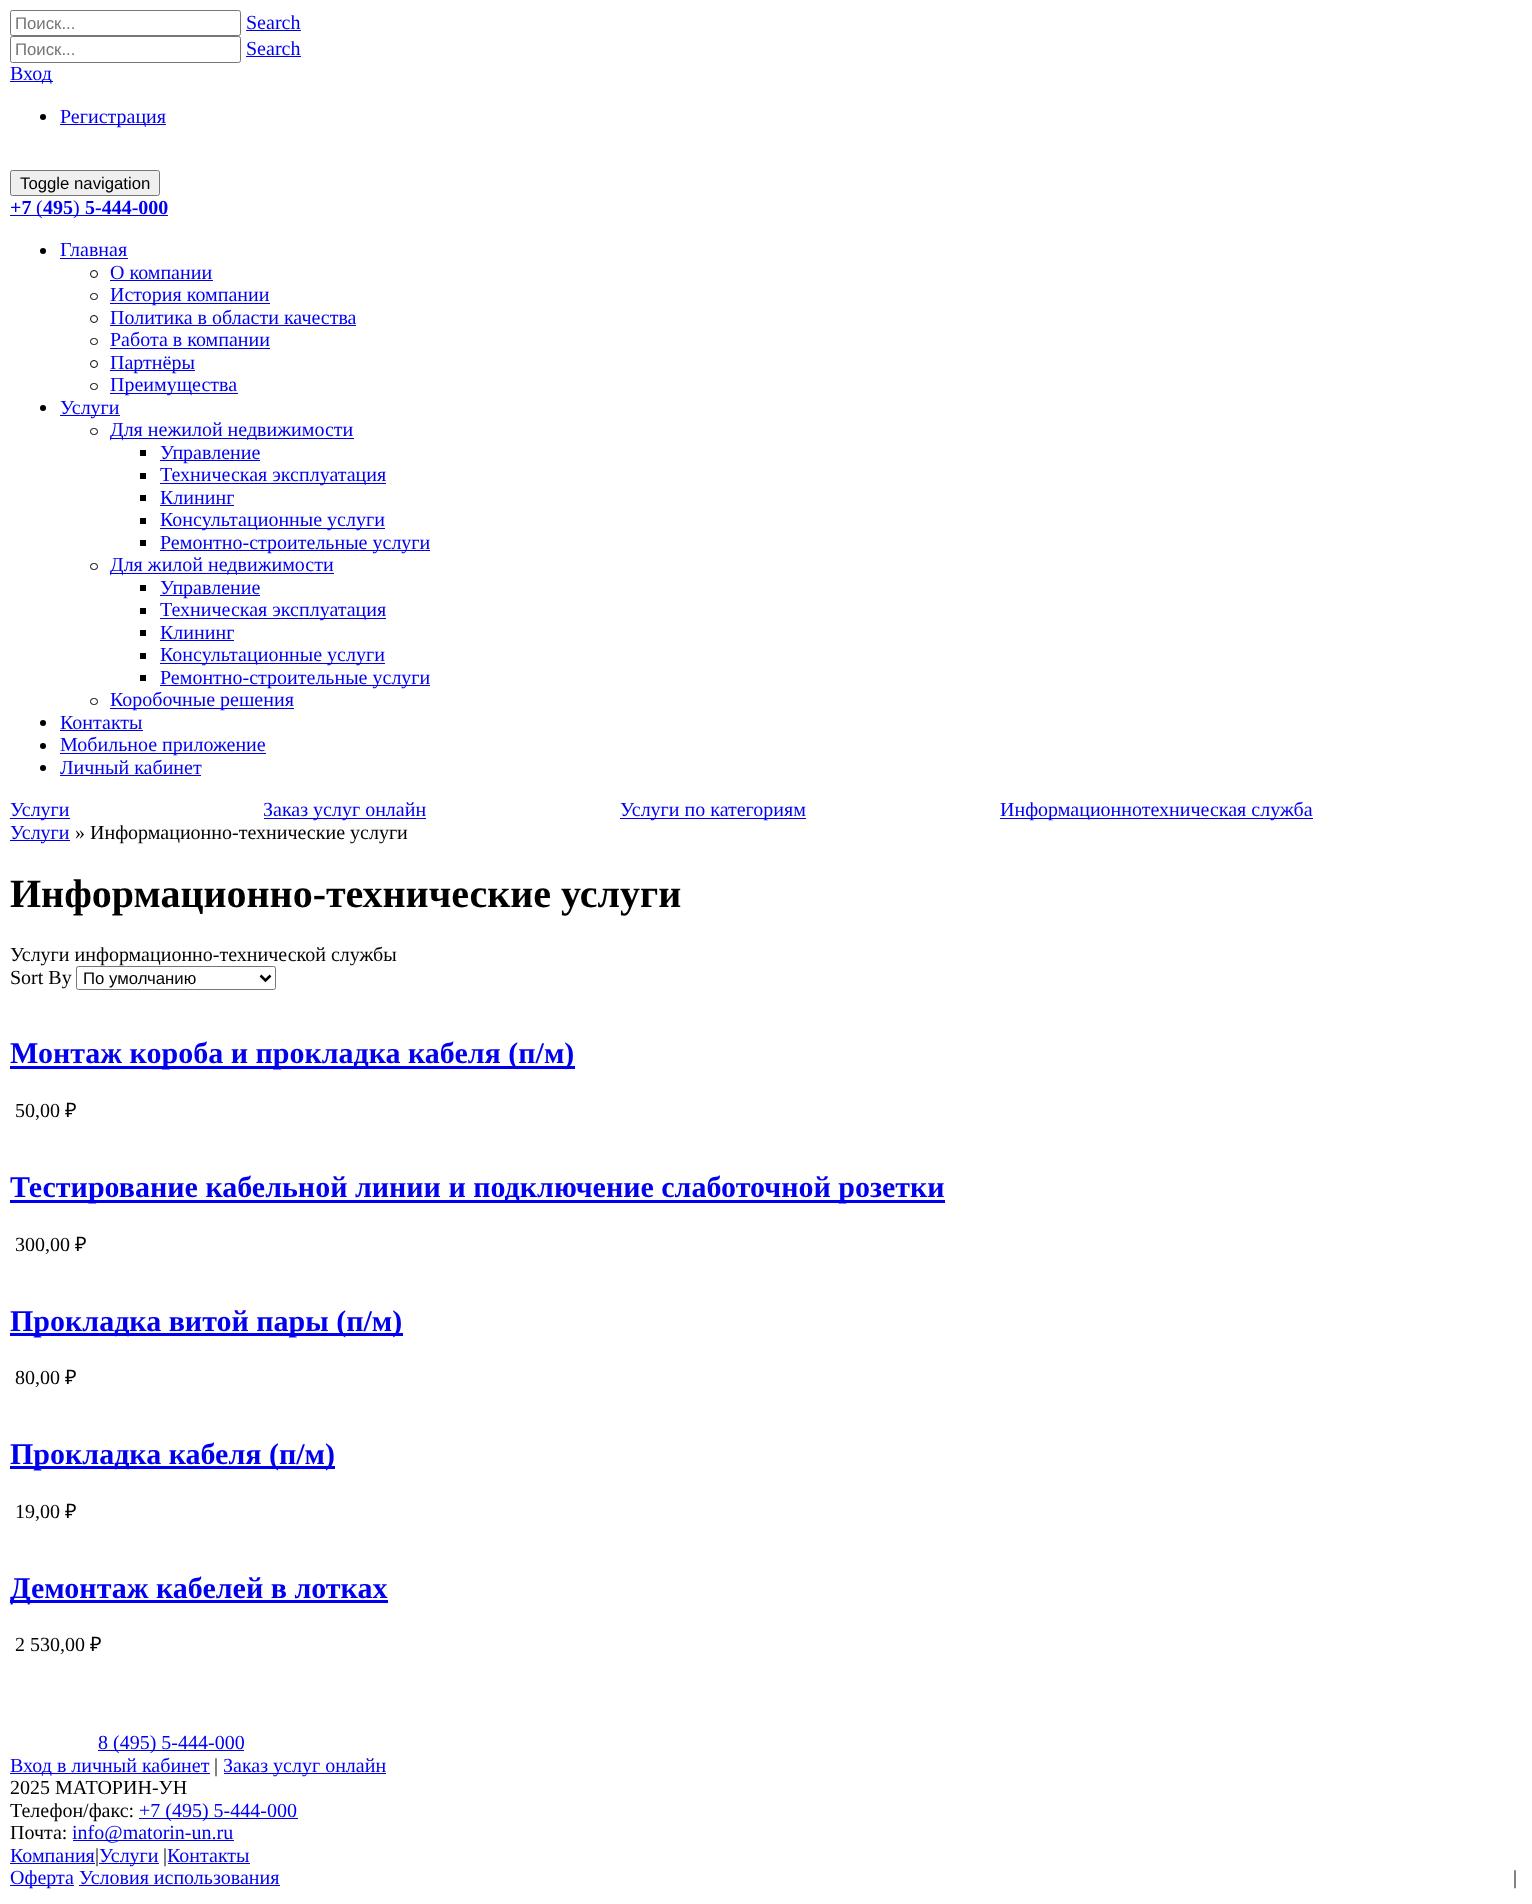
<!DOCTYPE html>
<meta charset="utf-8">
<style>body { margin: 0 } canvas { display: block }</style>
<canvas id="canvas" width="1532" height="1904"></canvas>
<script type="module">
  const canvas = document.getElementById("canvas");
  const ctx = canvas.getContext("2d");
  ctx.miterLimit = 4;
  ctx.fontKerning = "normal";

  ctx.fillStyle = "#ffffff";
  ctx.fillRect(0, 0, 1532, 1904);
  ctx.beginPath();
  ctx.roundRect(10.5, 10.5, 230, 25, 2);
  ctx.strokeStyle = "#767676";
  ctx.stroke();
  ctx.font = "16.75px Liberation Sans";
  ctx.fillStyle = "#757575";
  ctx.fillText("Поиск...", 15, 29);
  ctx.font = "20px Liberation Serif";
  ctx.fillStyle = "#0000ee";
  ctx.fillText("Search", 246, 29);
  ctx.fillRect(246, 30, 55, 1);
  ctx.beginPath();
  ctx.roundRect(10.5, 36.5, 230, 26, 2);
  ctx.stroke();
  ctx.font = "16.75px Liberation Sans";
  ctx.fillStyle = "#757575";
  ctx.fillText("Поиск...", 15, 55);
  ctx.font = "20px Liberation Serif";
  ctx.fillStyle = "#0000ee";
  ctx.fillText("Search", 246, 55);
  ctx.fillRect(246, 56, 55, 1);
  ctx.fillRect(10, 81, 43, 1);
  ctx.fillText("Вход", 10, 80);
  ctx.fillStyle = "#000000";
  ctx.beginPath();
  ctx.arc(43, 117, 3, 0, Math.PI * 2);
  ctx.fill();
  ctx.fillStyle = "#0000ee";
  ctx.fillRect(60, 124, 106, 1);
  ctx.fillText("Регистрация", 60, 123);
  ctx.fillStyle = "#efefef";
  ctx.beginPath();
  ctx.roundRect(10.5, 170.5, 149, 25, 2);
  ctx.fill();
  ctx.stroke();
  ctx.font = "16.75px Liberation Sans";
  ctx.fillStyle = "#000000";
  ctx.fillText("Toggle navigation", 20, 189);
  ctx.font = "bold 20px Liberation Serif";
  ctx.fillStyle = "#0000ee";
  ctx.fillText("+7", 10, 214);
  ctx.fillRect(10, 215, 158, 1);
  ctx.font = "20px Liberation Serif";
  ctx.fillText("(", 36, 214);
  ctx.font = "bold 20px Liberation Serif";
  ctx.fillText("495", 43, 214);
  ctx.font = "20px Liberation Serif";
  ctx.fillText(")", 73, 214);
  ctx.font = "bold 20px Liberation Serif";
  ctx.fillText("5-444-000", 85, 214);
  ctx.fillStyle = "#000000";
  ctx.beginPath();
  ctx.arc(43, 251, 3, 0, Math.PI * 2);
  ctx.fill();
  ctx.font = "20px Liberation Serif";
  ctx.fillStyle = "#0000ee";
  ctx.fillText("Главная", 60, 256);
  ctx.fillRect(60, 258, 68, 1);
  ctx.beginPath();
  ctx.arc(94, 274, 3.5, 0, Math.PI * 2);
  ctx.strokeStyle = "#000000";
  ctx.stroke();
  ctx.fillText("О компании", 110, 279);
  ctx.fillRect(110, 280, 103, 1);
  ctx.beginPath();
  ctx.roundRect(90.5, 293.5, 7, 6, 3);
  ctx.stroke();
  ctx.fillRect(110, 303, 160, 1);
  ctx.fillText("История компании", 110, 301);
  ctx.beginPath();
  ctx.arc(94, 319, 3.5, 0, Math.PI * 2);
  ctx.stroke();
  ctx.fillText("Политика в области качества", 110, 324);
  ctx.fillRect(110, 325, 246, 1);
  ctx.beginPath();
  ctx.roundRect(90.5, 338.5, 7, 6, 3);
  ctx.stroke();
  ctx.fillText("Работа в компании", 110, 346);
  ctx.fillRect(110, 348, 160, 1);
  ctx.beginPath();
  ctx.arc(94, 364, 3.5, 0, Math.PI * 2);
  ctx.stroke();
  ctx.fillRect(110, 370, 85, 1);
  ctx.fillText("Партнёры", 110, 369);
  ctx.beginPath();
  ctx.roundRect(90.5, 383.5, 7, 6, 3);
  ctx.stroke();
  ctx.fillRect(110, 393, 128, 1);
  ctx.fillText("Преимущества", 110, 391);
  ctx.fillStyle = "#000000";
  ctx.beginPath();
  ctx.arc(43, 408, 3, 0, Math.PI * 2);
  ctx.fill();
  ctx.fillStyle = "#0000ee";
  ctx.fillRect(60, 415, 60, 1);
  ctx.fillText("Услуги", 60, 414);
  ctx.beginPath();
  ctx.roundRect(90.5, 428.5, 7, 6, 3);
  ctx.stroke();
  ctx.fillRect(110, 438, 244, 1);
  ctx.fillText("Для нежилой недвижимости", 110, 436);
  ctx.fillStyle = "#000000";
  ctx.fillRect(140, 450, 6, 6);
  ctx.fillStyle = "#0000ee";
  ctx.fillRect(160, 460, 100, 1);
  ctx.fillText("Управление", 160, 459);
  ctx.fillStyle = "#000000";
  ctx.fillRect(140, 473, 6, 6);
  ctx.fillStyle = "#0000ee";
  ctx.fillRect(160, 483, 226, 1);
  ctx.fillText("Техническая эксплуатация", 160, 481);
  ctx.fillStyle = "#000000";
  ctx.fillRect(140, 495, 6, 6);
  ctx.fillStyle = "#0000ee";
  ctx.fillText("Клининг", 160, 504);
  ctx.fillRect(160, 505, 74, 1);
  ctx.fillStyle = "#000000";
  ctx.fillRect(140, 518, 6, 6);
  ctx.fillStyle = "#0000ee";
  ctx.fillRect(160, 528, 225, 1);
  ctx.fillText("Консультационные услуги", 160, 526);
  ctx.fillStyle = "#000000";
  ctx.fillRect(140, 540, 6, 6);
  ctx.fillStyle = "#0000ee";
  ctx.fillRect(160, 550, 270, 1);
  ctx.fillText("Ремонтно-строительные услуги", 160, 549);
  ctx.beginPath();
  ctx.roundRect(90.5, 563.5, 7, 6, 3);
  ctx.stroke();
  ctx.fillRect(110, 573, 224, 1);
  ctx.fillText("Для жилой недвижимости", 110, 571);
  ctx.fillStyle = "#000000";
  ctx.fillRect(140, 585, 6, 6);
  ctx.fillStyle = "#0000ee";
  ctx.fillRect(160, 595, 100, 1);
  ctx.fillText("Управление", 160, 594);
  ctx.fillStyle = "#000000";
  ctx.fillRect(140, 608, 6, 6);
  ctx.fillStyle = "#0000ee";
  ctx.fillRect(160, 618, 226, 1);
  ctx.fillText("Техническая эксплуатация", 160, 616);
  ctx.fillStyle = "#000000";
  ctx.fillRect(140, 630, 6, 6);
  ctx.fillStyle = "#0000ee";
  ctx.fillText("Клининг", 160, 639);
  ctx.fillRect(160, 640, 74, 1);
  ctx.fillStyle = "#000000";
  ctx.fillRect(140, 653, 6, 6);
  ctx.fillStyle = "#0000ee";
  ctx.fillRect(160, 663, 225, 1);
  ctx.fillText("Консультационные услуги", 160, 661);
  ctx.fillStyle = "#000000";
  ctx.fillRect(140, 675, 6, 6);
  ctx.fillStyle = "#0000ee";
  ctx.fillRect(160, 685, 270, 1);
  ctx.fillText("Ремонтно-строительные услуги", 160, 684);
  ctx.beginPath();
  ctx.roundRect(90.5, 698.5, 7, 6, 3);
  ctx.stroke();
  ctx.fillRect(110, 708, 184, 1);
  ctx.fillText("Коробочные решения", 110, 706);
  ctx.fillStyle = "#000000";
  ctx.beginPath();
  ctx.arc(43, 723, 3, 0, Math.PI * 2);
  ctx.fill();
  ctx.fillStyle = "#0000ee";
  ctx.fillText("Контакты", 60, 729);
  ctx.fillRect(60, 730, 83, 1);
  ctx.fillStyle = "#000000";
  ctx.beginPath();
  ctx.arc(43, 746, 3, 0, Math.PI * 2);
  ctx.fill();
  ctx.fillStyle = "#0000ee";
  ctx.fillRect(60, 753, 206, 1);
  ctx.fillText("Мобильное приложение", 60, 751);
  ctx.fillStyle = "#000000";
  ctx.beginPath();
  ctx.arc(43, 768, 3, 0, Math.PI * 2);
  ctx.fill();
  ctx.fillStyle = "#0000ee";
  ctx.fillText("Личный кабинет", 60, 774);
  ctx.fillRect(60, 775, 141, 1);
  ctx.fillRect(10, 818, 60, 1);
  ctx.fillText("Услуги", 10, 816);
  ctx.fillRect(264, 818, 162, 1);
  ctx.fillText("Заказ услуг онлайн", 263, 816);
  ctx.fillRect(620, 818, 186, 1);
  ctx.fillText("Услуги по категориям", 620, 816);
  ctx.fillRect(1000, 818, 313, 1);
  ctx.fillText("Информационнотехническая служба", 1000, 816);
  ctx.fillRect(10, 840, 60, 1);
  ctx.fillText("Услуги", 10, 839);
  ctx.fillStyle = "#000000";
  ctx.fillText("» Информационно-технические услуги", 75, 839);
  ctx.font = "bold 40px Liberation Serif";
  ctx.fillText("Информационно-технические услуги", 10, 907);
  ctx.font = "20px Liberation Serif";
  ctx.fillText("Услуги информационно-технической службы", 10, 961);
  ctx.fillText("Sort By", 10, 984);
  ctx.beginPath();
  ctx.roundRect(76.5, 966.5, 199, 23, 2);
  ctx.strokeStyle = "#767676";
  ctx.stroke();
  ctx.beginPath();
  ctx.moveTo(260.5, 975.5);
  ctx.lineTo(265.5, 980.5);
  ctx.lineTo(270.5, 975.5);
  ctx.strokeStyle = "#000000";
  ctx.lineWidth = 2.5;
  ctx.stroke();
  ctx.font = "16.75px Liberation Sans";
  ctx.fillText("По умолчанию", 83, 984);
  ctx.fillStyle = "#0000ee";
  ctx.fillRect(10, 1066, 565, 3);
  ctx.font = "bold 30px Liberation Serif";
  ctx.fillText("Монтаж короба и прокладка кабеля (п/м)", 10, 1063);
  ctx.font = "20px Liberation Serif";
  ctx.fillStyle = "#000000";
  ctx.fillText("50,00", 15, 1117);
  ctx.font = "20px Noto Sans";
  ctx.fillText("₽", 65, 1117);
  ctx.fillStyle = "#0000ee";
  ctx.fillRect(10, 1200, 935, 3);
  ctx.font = "bold 30px Liberation Serif";
  ctx.fillText("Тестирование кабельной линии и подключение слаботочной розетки", 10, 1197);
  ctx.font = "20px Liberation Serif";
  ctx.fillStyle = "#000000";
  ctx.fillText("300,00", 15, 1251);
  ctx.font = "20px Noto Sans";
  ctx.fillText("₽", 75, 1251);
  ctx.fillStyle = "#0000ee";
  ctx.fillRect(10, 1333, 393, 3);
  ctx.font = "bold 30px Liberation Serif";
  ctx.fillText("Прокладка витой пары (п/м)", 10, 1331);
  ctx.font = "20px Liberation Serif";
  ctx.fillStyle = "#000000";
  ctx.fillText("80,00", 15, 1384);
  ctx.font = "20px Noto Sans";
  ctx.fillText("₽", 65, 1384);
  ctx.fillStyle = "#0000ee";
  ctx.fillRect(10, 1466, 325, 3);
  ctx.font = "bold 30px Liberation Serif";
  ctx.fillText("Прокладка кабеля (п/м)", 10, 1464);
  ctx.font = "20px Liberation Serif";
  ctx.fillStyle = "#000000";
  ctx.fillText("19,00", 15, 1518);
  ctx.font = "20px Noto Sans";
  ctx.fillText("₽", 65, 1518);
  ctx.fillStyle = "#0000ee";
  ctx.fillRect(10, 1600, 378, 3);
  ctx.font = "bold 30px Liberation Serif";
  ctx.fillText("Демонтаж кабелей в лотках", 10, 1598);
  ctx.font = "20px Liberation Serif";
  ctx.fillStyle = "#000000";
  ctx.fillText("2 530,00", 15, 1651);
  ctx.font = "20px Noto Sans";
  ctx.fillText("₽", 90, 1651);
  ctx.fillStyle = "#0000ee";
  ctx.fillRect(98, 1750, 146, 1);
  ctx.font = "20px Liberation Serif";
  ctx.fillText("8 (495) 5-444-000", 98, 1749);
  ctx.fillRect(10, 1773, 200, 1);
  ctx.fillText("Вход в личный кабинет", 10, 1772);
  ctx.fillStyle = "#000000";
  ctx.fillText("|", 214, 1772);
  ctx.fillStyle = "#0000ee";
  ctx.fillRect(224, 1773, 162, 1);
  ctx.fillText("Заказ услуг онлайн", 223, 1772);
  ctx.fillStyle = "#000000";
  ctx.fillText("2025 МАТОРИН-УН", 10, 1794);
  ctx.fillText("Телефон/факс:", 10, 1817);
  ctx.fillStyle = "#0000ee";
  ctx.fillRect(139, 1818, 159, 1);
  ctx.fillText("+7 (495) 5-444-000", 139, 1817);
  ctx.fillStyle = "#000000";
  ctx.fillText("Почта:", 10, 1839);
  ctx.fillStyle = "#0000ee";
  ctx.fillRect(73, 1840, 161, 1);
  ctx.fillText("info@matorin-un.ru", 72, 1839);
  ctx.fillText("Компания", 10, 1862);
  ctx.fillRect(10, 1863, 85, 1);
  ctx.fillStyle = "#000000";
  ctx.fillText("|", 95, 1862);
  ctx.fillStyle = "#0000ee";
  ctx.fillRect(99, 1863, 60, 1);
  ctx.fillText("Услуги", 99, 1862);
  ctx.fillStyle = "#000000";
  ctx.fillText("|", 163, 1862);
  ctx.fillStyle = "#0000ee";
  ctx.fillText("Контакты", 167, 1862);
  ctx.fillRect(168, 1863, 82, 1);
  ctx.fillRect(10, 1885, 64, 1);
  ctx.fillText("Оферта Условия использования", 10, 1884);
  ctx.fillStyle = "#000000";
  ctx.fillText("|", 1513, 1884);
  ctx.fillStyle = "#0000ee";
  ctx.fillRect(79, 1885, 201, 1);
</script>
